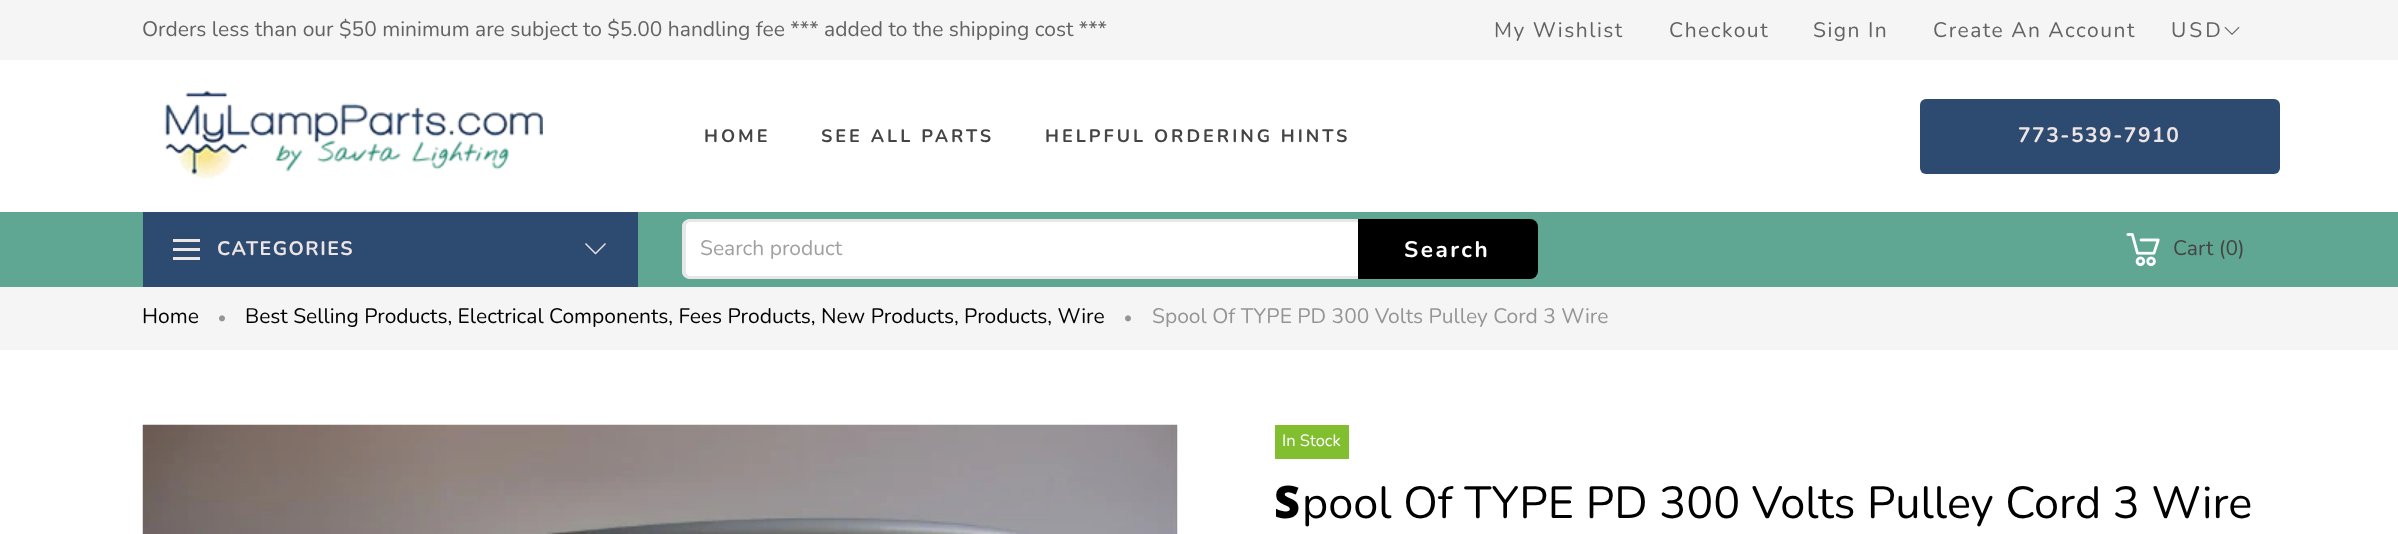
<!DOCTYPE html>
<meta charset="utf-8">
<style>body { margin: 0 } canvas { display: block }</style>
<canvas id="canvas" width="2398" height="534"></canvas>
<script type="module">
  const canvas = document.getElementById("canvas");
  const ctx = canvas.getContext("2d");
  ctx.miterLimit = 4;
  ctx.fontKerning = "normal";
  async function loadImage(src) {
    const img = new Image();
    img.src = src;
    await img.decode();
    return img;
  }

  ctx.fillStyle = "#ffffff";
  ctx.fillRect(0, 0, 2398, 534);
  ctx.fillStyle = "#f5f5f5";
  ctx.fillRect(0, 0, 2398, 60);
  ctx.font = "21px Nunito";
  ctx.fillStyle = "#636363";
  ctx.fillText("Orders less than our $50 minimum are subject to $5.00 handling fee *** added to the shipping cost ***", 142, 36);
  ctx.letterSpacing = "1.5px";
  ctx.fillText("My Wishlist", 1494, 37);
  ctx.fillText("Checkout", 1669, 37);
  ctx.fillText("Sign In", 1813, 37);
  ctx.fillText("Create An Account", 1933, 37);
  ctx.letterSpacing = "3px";
  ctx.fillText("USD", 2171, 37);
  ctx.drawImage(await loadImage("img1.png"), 2224, 26, 16, 9);
  ctx.drawImage(await loadImage("img2.png"), 164, 90, 379, 89);
  ctx.font = "bold 18px Nunito";
  ctx.fillStyle = "#454444";
  ctx.fillText("HOME", 704, 142);
  ctx.fillText("SEE ALL PARTS", 821, 142);
  ctx.fillText("HELPFUL ORDERING HINTS", 1045, 142);
  ctx.fillStyle = "#2d4a70";
  ctx.beginPath();
  ctx.roundRect(1920, 99, 360, 75, 6);
  ctx.fill();
  ctx.letterSpacing = "1.5px";
  ctx.font = "bold 21px Nunito";
  ctx.fillStyle = "#ede4e4";
  ctx.fillText("773-539-7910", 2018, 142);
  ctx.fillStyle = "#5fa793";
  ctx.fillRect(0, 212, 2398, 75);
  ctx.fillStyle = "#2d4a70";
  ctx.fillRect(143, 212, 495, 75);
  ctx.fillStyle = "#ede4e4";
  ctx.fillRect(173, 248, 27, 3);
  ctx.fillRect(173, 239, 27, 3);
  ctx.fillRect(173, 257, 27, 3);
  ctx.font = "bold 19.5px Nunito";
  ctx.fillText("CATEGORIES", 217, 255);
  ctx.beginPath();
  ctx.moveTo(586, 243);
  ctx.lineTo(595.5, 252.5);
  ctx.lineTo(605, 243);
  ctx.lineTo(606, 244);
  ctx.lineTo(595.5, 254.5);
  ctx.lineTo(585, 244);
  ctx.closePath();
  ctx.fill();
  ctx.fillStyle = "#ffffff";
  ctx.beginPath();
  ctx.roundRect(683, 219, 675, 60, [8, 0, 0, 8]);
  ctx.fill();
  ctx.fillStyle = "#e7e7e7";
  ctx.beginPath();
  ctx.moveTo(690, 219);
  ctx.lineTo(1358, 219);
  ctx.lineTo(1358, 279);
  ctx.lineTo(690, 279);
  ctx.bezierCurveTo(686, 279, 682, 276, 682, 272);
  ctx.lineTo(682, 226);
  ctx.bezierCurveTo(682, 222, 686, 219, 690, 219);
  ctx.closePath();
  ctx.moveTo(690, 222);
  ctx.lineTo(1358, 222);
  ctx.lineTo(1358, 276);
  ctx.lineTo(690, 276);
  ctx.bezierCurveTo(688, 276, 686, 274, 686, 272);
  ctx.lineTo(686, 226);
  ctx.bezierCurveTo(686, 224, 688, 222, 690, 222);
  ctx.closePath();
  ctx.fill("evenodd");
  ctx.letterSpacing = "0px";
  ctx.font = "21px Nunito";
  ctx.fillStyle = "#a1a1a1";
  ctx.fillText("Search product", 700, 255);
  ctx.fillStyle = "#000000";
  ctx.beginPath();
  ctx.roundRect(1358, 219, 180, 60, [0, 8, 8, 0]);
  ctx.fill();
  ctx.letterSpacing = "2.5px";
  ctx.font = "bold 22.5px Nunito";
  ctx.fillStyle = "#ffffff";
  ctx.fillText("Search", 1404, 257);
  ctx.drawImage(await loadImage("img3.png"), 2126, 233, 34, 34);
  ctx.letterSpacing = "0px";
  ctx.font = "21px Nunito";
  ctx.fillStyle = "#454444";
  ctx.fillText("Cart (0)", 2173, 255);
  ctx.fillStyle = "#f5f5f5";
  ctx.fillRect(0, 287, 2398, 63);
  ctx.fillStyle = "#000000";
  ctx.fillText("Home", 142, 323);
  ctx.drawImage(await loadImage("img4.png"), 219, 315, 6, 7);
  ctx.fillText("Best Selling Products, Electrical Components, Fees Products, New Products, Products, Wire", 245, 323);
  ctx.drawImage(await loadImage("img4.png"), 1125, 315, 6, 7);
  ctx.fillStyle = "#959595";
  ctx.fillText("Spool Of TYPE PD 300 Volts Pulley Cord 3 Wire", 1152, 323);
  ctx.drawImage(await loadImage("img5.png"), 142, 424, 1036, 110);
  ctx.fillStyle = "#81bf30";
  ctx.fillRect(1275, 425, 74, 34);
  ctx.font = "16.5px Nunito";
  ctx.fillStyle = "#ffffff";
  ctx.fillText("In Stock", 1282, 446);
  ctx.font = "900 45px Noto Sans";
  ctx.fillStyle = "#000000";
  ctx.fillText("S", 1274, 518);
  ctx.font = "45px Nunito";
  ctx.fillText("pool Of TYPE PD 300 Volts Pulley Cord 3 Wire", 1302, 518);
</script>
